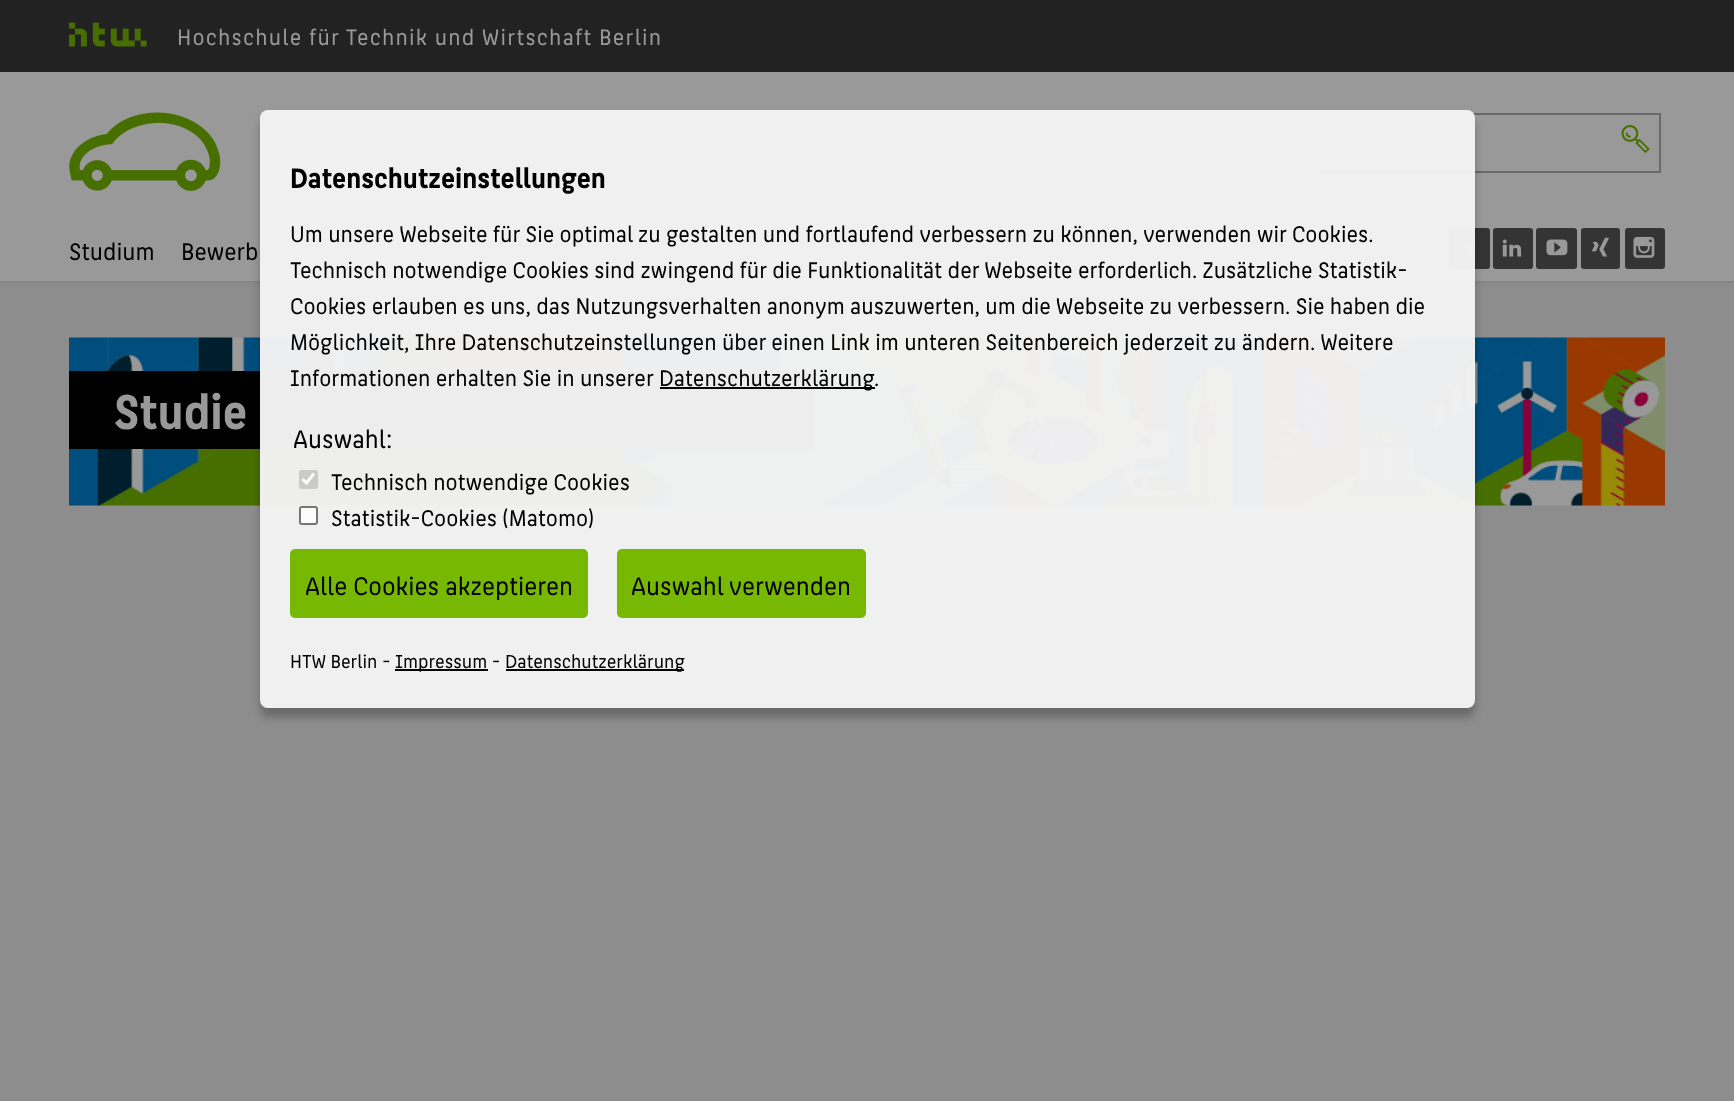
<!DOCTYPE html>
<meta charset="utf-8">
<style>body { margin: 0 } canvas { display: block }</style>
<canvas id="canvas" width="1734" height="1101"></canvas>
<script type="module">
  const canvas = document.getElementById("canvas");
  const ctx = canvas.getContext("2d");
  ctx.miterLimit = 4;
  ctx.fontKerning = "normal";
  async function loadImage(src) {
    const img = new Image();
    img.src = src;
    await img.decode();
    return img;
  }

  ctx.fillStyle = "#999999";
  ctx.fillRect(0, 0, 1734, 1101);
  ctx.fillStyle = "#828282";
  ctx.fillRect(0, 281, 1734, 1);
  ctx.fillStyle = "#222222";
  ctx.fillRect(0, 0, 1734, 72);
  ctx.drawImage(await loadImage("img1.png"), 69, 22, 78, 25);
  ctx.letterSpacing = "1.2px";
  ctx.font = "23.9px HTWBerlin";
  ctx.fillStyle = "#999999";
  ctx.fillText("Hochschule für Technik und Wirtschaft Berlin", 177, 45);
  ctx.drawImage(await loadImage("img2.png"), 69, 112, 152, 79);
  ctx.strokeStyle = "#696969";
  ctx.lineWidth = 2;
  ctx.strokeRect(1315, 114, 345, 58);
  ctx.drawImage(await loadImage("img3.png"), 1621, 125, 29, 29);
  ctx.letterSpacing = "0px";
  ctx.font = "25.5px HTWBerlin";
  ctx.fillStyle = "#000000";
  ctx.fillText("Studium", 69, 260);
  ctx.fillText("Bewerb", 181, 260);
  ctx.fillStyle = "#343434";
  ctx.beginPath();
  ctx.roundRect(1449, 228, 41, 41, 3);
  ctx.fill();
  ctx.drawImage(await loadImage("img4.png"), 1465, 240, 10, 18);
  ctx.beginPath();
  ctx.roundRect(1493, 228, 40, 41, 3);
  ctx.fill();
  ctx.drawImage(await loadImage("img5.png"), 1502, 239, 20, 18);
  ctx.beginPath();
  ctx.roundRect(1536, 228, 41, 41, 3);
  ctx.fill();
  ctx.drawImage(await loadImage("img6.png"), 1546, 239, 22, 17);
  ctx.beginPath();
  ctx.roundRect(1581, 228, 39, 41, 3);
  ctx.fill();
  ctx.drawImage(await loadImage("img7.png"), 1592, 237, 17, 20);
  ctx.beginPath();
  ctx.roundRect(1625, 228, 40, 41, 3);
  ctx.fill();
  ctx.drawImage(await loadImage("img8.png"), 1633, 236, 22, 22);
  ctx.fillStyle = "#8d8d8d";
  ctx.fillRect(0, 287, 1734, 814);
  ctx.fillStyle = "#888888";
  ctx.fillRect(0, 282, 1734, 2);
  ctx.fillStyle = "#8b8b8b";
  ctx.fillRect(0, 284, 1734, 3);
  ctx.drawImage(await loadImage("img9.png"), 69, 337, 1596, 169);
  ctx.fillStyle = "#000000";
  ctx.fillRect(69, 371, 744, 78);
  ctx.font = "bold 52px HTWBerlin";
  ctx.fillStyle = "#999999";
  ctx.fillText("Studie", 114, 429);
  ctx.save();
  ctx.beginPath();
  ctx.moveTo(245, 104);
  ctx.lineTo(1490, 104);
  ctx.lineTo(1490, 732);
  ctx.lineTo(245, 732);
  ctx.closePath();
  ctx.moveTo(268, 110);
  ctx.lineTo(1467, 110);
  ctx.bezierCurveTo(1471.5, 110, 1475, 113.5, 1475, 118);
  ctx.lineTo(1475, 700);
  ctx.bezierCurveTo(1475, 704.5, 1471.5, 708, 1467, 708);
  ctx.lineTo(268, 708);
  ctx.bezierCurveTo(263.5, 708, 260, 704.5, 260, 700);
  ctx.lineTo(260, 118);
  ctx.bezierCurveTo(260, 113.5, 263.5, 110, 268, 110);
  ctx.closePath();
  ctx.clip("evenodd");
  ctx.fillStyle = "rgba(0, 0, 0, 0.25)";
  ctx.filter = "blur(4.5px)";
  ctx.beginPath();
  ctx.roundRect(260, 119, 1215, 598, 8);
  ctx.fill();
  ctx.filter = "none";
  ctx.restore();
  ctx.fillStyle = "rgba(242, 242, 242, 0.98)";
  ctx.beginPath();
  ctx.roundRect(260, 110, 1215, 598, 8);
  ctx.fill();
  ctx.font = "bold 30px HTWBerlin";
  ctx.fillStyle = "#000000";
  ctx.fillText("Datenschutzeinstellungen", 290, 188);
  ctx.font = "24px HTWBerlin";
  ctx.fillText("Um unsere Webseite für Sie optimal zu gestalten und fortlaufend verbessern zu können, verwenden wir Cookies.", 290, 242);
  ctx.fillText("Technisch notwendige Cookies sind zwingend für die Funktionalität der Webseite erforderlich. Zusätzliche Statistik-", 290, 278);
  ctx.fillText("Cookies erlauben es uns, das Nutzungsverhalten anonym auszuwerten, um die Webseite zu verbessern. Sie haben die", 290, 314);
  ctx.fillText("Möglichkeit, Ihre Datenschutzeinstellungen über einen Link im unteren Seitenbereich jederzeit zu ändern. Weitere", 290, 350);
  ctx.fillText("Informationen erhalten Sie in unserer", 290, 386);
  ctx.fillStyle = "rgba(0, 0, 0, 0.98)";
  ctx.fillRect(660, 387, 215, 2);
  ctx.fillStyle = "#000000";
  ctx.fillText("Datenschutzerklärung", 659, 386);
  ctx.fillText(".", 874, 386);
  ctx.font = "27px HTWBerlin";
  ctx.fillText("Auswahl:", 293, 448);
  ctx.fillStyle = "#cacbc9";
  ctx.beginPath();
  ctx.roundRect(299, 470, 19, 19, 3);
  ctx.fill();
  ctx.beginPath();
  ctx.moveTo(302.5, 479);
  ctx.lineTo(306.5, 483);
  ctx.lineTo(314, 473.5);
  ctx.strokeStyle = "#fcfdfb";
  ctx.lineWidth = 3.1;
  ctx.stroke();
  ctx.font = "24px HTWBerlin";
  ctx.fillStyle = "#000000";
  ctx.fillText("Technisch notwendige Cookies", 331, 490);
  ctx.fillStyle = "#fdfdfd";
  ctx.beginPath();
  ctx.roundRect(300, 507, 17, 17, 2);
  ctx.fill();
  ctx.strokeStyle = "#767676";
  ctx.lineWidth = 2;
  ctx.stroke();
  ctx.fillStyle = "#000000";
  ctx.fillText("Statistik-Cookies (Matomo)", 331, 526);
  ctx.fillStyle = "#76b802";
  ctx.beginPath();
  ctx.roundRect(290, 549, 298, 69, 5);
  ctx.fill();
  ctx.font = "27px HTWBerlin";
  ctx.fillStyle = "#000000";
  ctx.fillText("Alle Cookies akzeptieren", 305, 595);
  ctx.fillStyle = "#76b802";
  ctx.beginPath();
  ctx.roundRect(617, 549, 249, 69, 5);
  ctx.fill();
  ctx.fillStyle = "#000000";
  ctx.fillText("Auswahl verwenden", 631, 595);
  ctx.font = "20px HTWBerlin";
  ctx.fillText("HTW Berlin -", 290, 668);
  ctx.fillStyle = "#020202";
  ctx.fillRect(395, 669, 93, 2);
  ctx.fillStyle = "#000000";
  ctx.fillText("Impressum -", 395, 668);
  ctx.fillStyle = "#020202";
  ctx.fillRect(506, 669, 178, 2);
  ctx.fillStyle = "#000000";
  ctx.fillText("Datenschutzerklärung", 505, 668);
</script>
